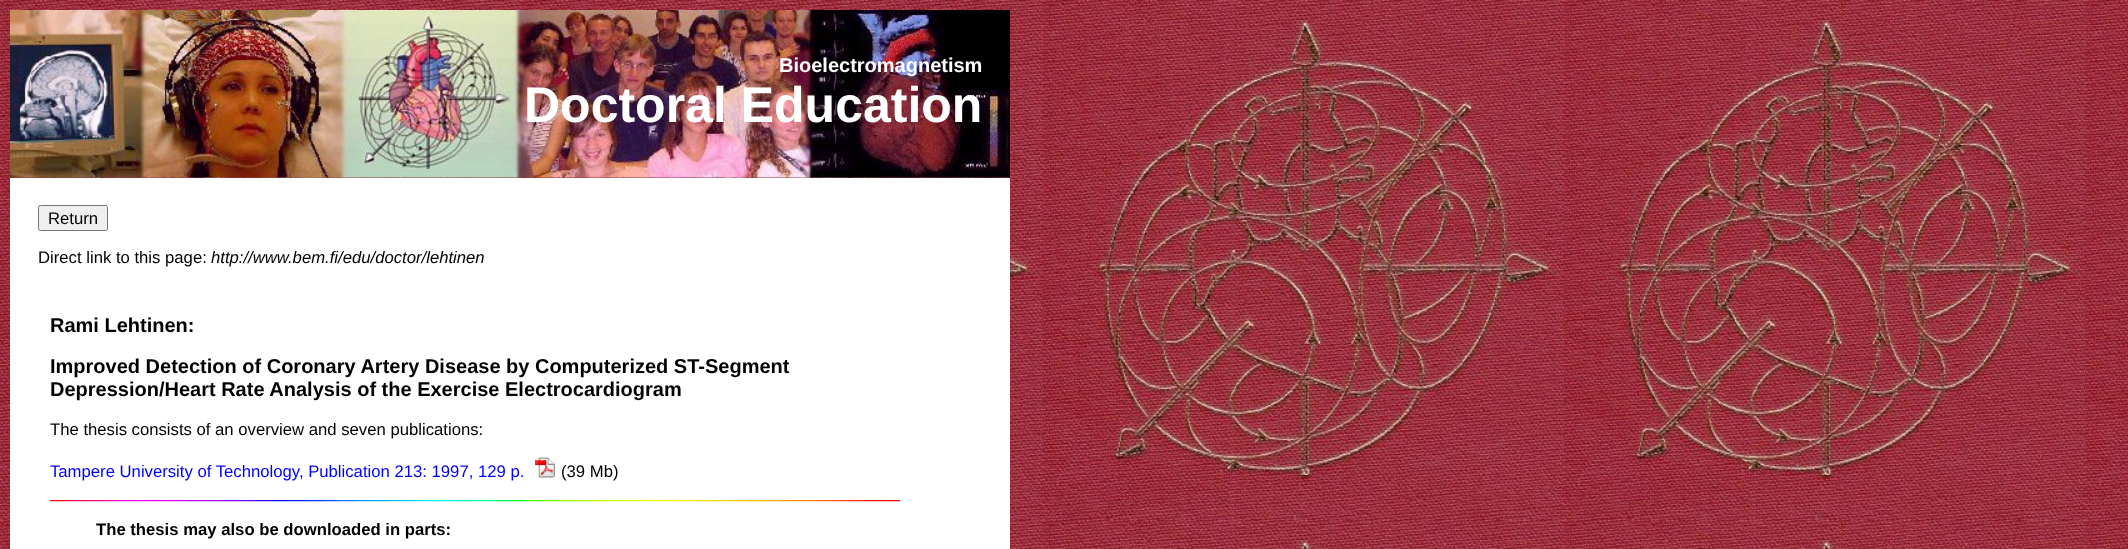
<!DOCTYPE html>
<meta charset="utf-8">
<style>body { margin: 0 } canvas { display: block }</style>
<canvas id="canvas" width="2128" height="549"></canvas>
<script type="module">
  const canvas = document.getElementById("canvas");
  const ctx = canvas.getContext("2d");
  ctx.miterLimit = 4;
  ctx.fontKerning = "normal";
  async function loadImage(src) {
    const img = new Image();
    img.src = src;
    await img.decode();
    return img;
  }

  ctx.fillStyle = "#ffffff";
  ctx.fillRect(0, 0, 2128, 549);
  ctx.drawImage(await loadImage("img1.png"), 0, 0, 2128, 549);
  ctx.drawImage(await loadImage("img2.png"), 10, 10, 1000, 168);
  ctx.font = "bold 20px Liberation Sans";
  ctx.fillText("Bioelectromagnetism", 779, 72);
  ctx.font = "bold 50px Liberation Sans";
  ctx.fillText("Doctoral Education", 524, 122);
  ctx.fillRect(10, 178, 1000, 371);
  ctx.fillStyle = "#efefef";
  ctx.beginPath();
  ctx.roundRect(38.5, 205.5, 69, 25, 2);
  ctx.fill();
  ctx.strokeStyle = "#767676";
  ctx.stroke();
  ctx.font = "16.7px Liberation Sans";
  ctx.fillStyle = "#000000";
  ctx.fillText("Return", 48, 224);
  ctx.fillText("Direct link to this page:", 38, 263);
  ctx.font = "italic 16.7px Liberation Sans";
  ctx.fillText("http://www.bem.fi/edu/doctor/lehtinen", 211, 263);
  ctx.font = "bold 20px Liberation Sans";
  ctx.fillText("Rami Lehtinen:", 50, 332);
  ctx.fillText("Improved Detection of Coronary Artery Disease by Computerized ST-Segment", 50, 373);
  ctx.fillText("Depression/Heart Rate Analysis of the Exercise Electrocardiogram", 50, 396);
  ctx.font = "16.7px Liberation Sans";
  ctx.fillText("The thesis consists of an overview and seven publications:", 50, 435);
  ctx.fillStyle = "#0000ff";
  ctx.fillText("Tampere University of Technology, Publication 213: 1997, 129 p.", 50, 477);
  ctx.drawImage(await loadImage("img3.png"), 535, 457, 20, 21);
  ctx.fillStyle = "#000000";
  ctx.fillText("(39 Mb)", 561, 477);
  ctx.drawImage(await loadImage("img4.png"), 50, 500, 850, 2);
  ctx.font = "bold 16.7px Liberation Sans";
  ctx.fillText("The thesis may also be downloaded in parts:", 96, 535);
</script>
